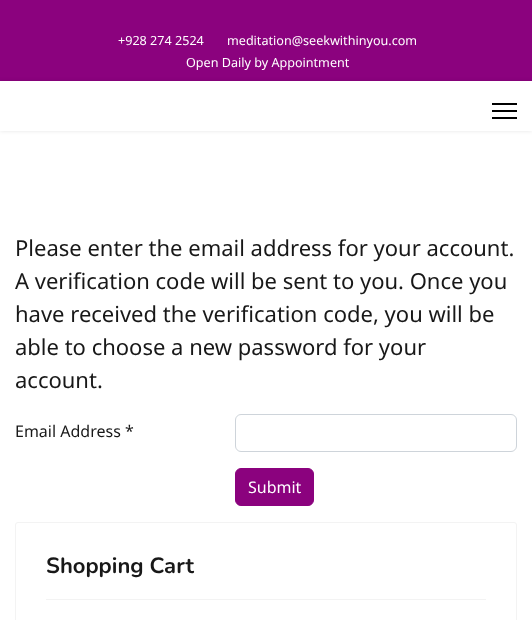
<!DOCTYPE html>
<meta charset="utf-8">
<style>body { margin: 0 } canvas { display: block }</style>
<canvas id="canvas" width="532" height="620"></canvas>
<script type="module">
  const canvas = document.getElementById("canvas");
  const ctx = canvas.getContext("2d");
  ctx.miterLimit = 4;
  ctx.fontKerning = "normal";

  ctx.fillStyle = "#ffffff";
  ctx.fillRect(0, 0, 532, 620);
  ctx.fillStyle = "#8b027e";
  ctx.fillRect(0, 0, 532, 81);
  ctx.font = "12.6px Noto Sans";
  ctx.fillStyle = "#ffffff";
  ctx.fillText("+928 274 2524", 118, 45);
  ctx.fillText("meditation@seekwithinyou.com", 227, 45);
  ctx.fillText("Open Daily by Appointment", 186, 67);
  ctx.save();
  ctx.beginPath();
  ctx.moveTo(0, 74);
  ctx.lineTo(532, 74);
  ctx.lineTo(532, 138);
  ctx.lineTo(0, 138);
  ctx.closePath();
  ctx.moveTo(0, 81);
  ctx.lineTo(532, 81);
  ctx.lineTo(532, 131);
  ctx.lineTo(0, 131);
  ctx.closePath();
  ctx.clip("evenodd");
  ctx.fillStyle = "rgba(0, 0, 0, 0.1)";
  ctx.filter = "blur(2px)";
  ctx.beginPath();
  ctx.rect(0, 81, 532, 50);
  ctx.fill();
  ctx.filter = "none";
  ctx.restore();
  ctx.fillStyle = "#000000";
  ctx.fillRect(492, 103, 25, 2);
  ctx.fillRect(492, 110, 25, 2);
  ctx.fillRect(492, 117, 25, 2);
  ctx.font = "22px Noto Sans";
  ctx.fillStyle = "#181818";
  ctx.fillText("Please enter the email address for your account.", 15, 256);
  ctx.fillText("A verification code will be sent to you. Once you", 15, 289);
  ctx.fillText("have received the verification code, you will be", 15, 322);
  ctx.fillText("able to choose a new password for your", 15, 355);
  ctx.fillText("account.", 15, 388);
  ctx.font = "16px Noto Sans";
  ctx.fillText("Email Address *", 15, 437);
  ctx.beginPath();
  ctx.roundRect(235.5, 414.5, 281, 37, 5.5);
  ctx.strokeStyle = "#ced4da";
  ctx.stroke();
  ctx.fillStyle = "#8b027e";
  ctx.beginPath();
  ctx.roundRect(235.5, 468.5, 78, 37, 5.5);
  ctx.fill();
  ctx.strokeStyle = "#8b027e";
  ctx.stroke();
  ctx.fillStyle = "#ffffff";
  ctx.fillText("Submit", 248, 493);
  ctx.beginPath();
  ctx.roundRect(15.5, 522.5, 501, 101, 2.5);
  ctx.strokeStyle = "#f3f3f3";
  ctx.stroke();
  ctx.fillStyle = "#f3f3f3";
  ctx.fillRect(46, 599, 440, 1);
  ctx.font = "bold 22px Nunito";
  ctx.fillStyle = "#181818";
  ctx.fillText("Shopping Cart", 46, 573);
</script>
